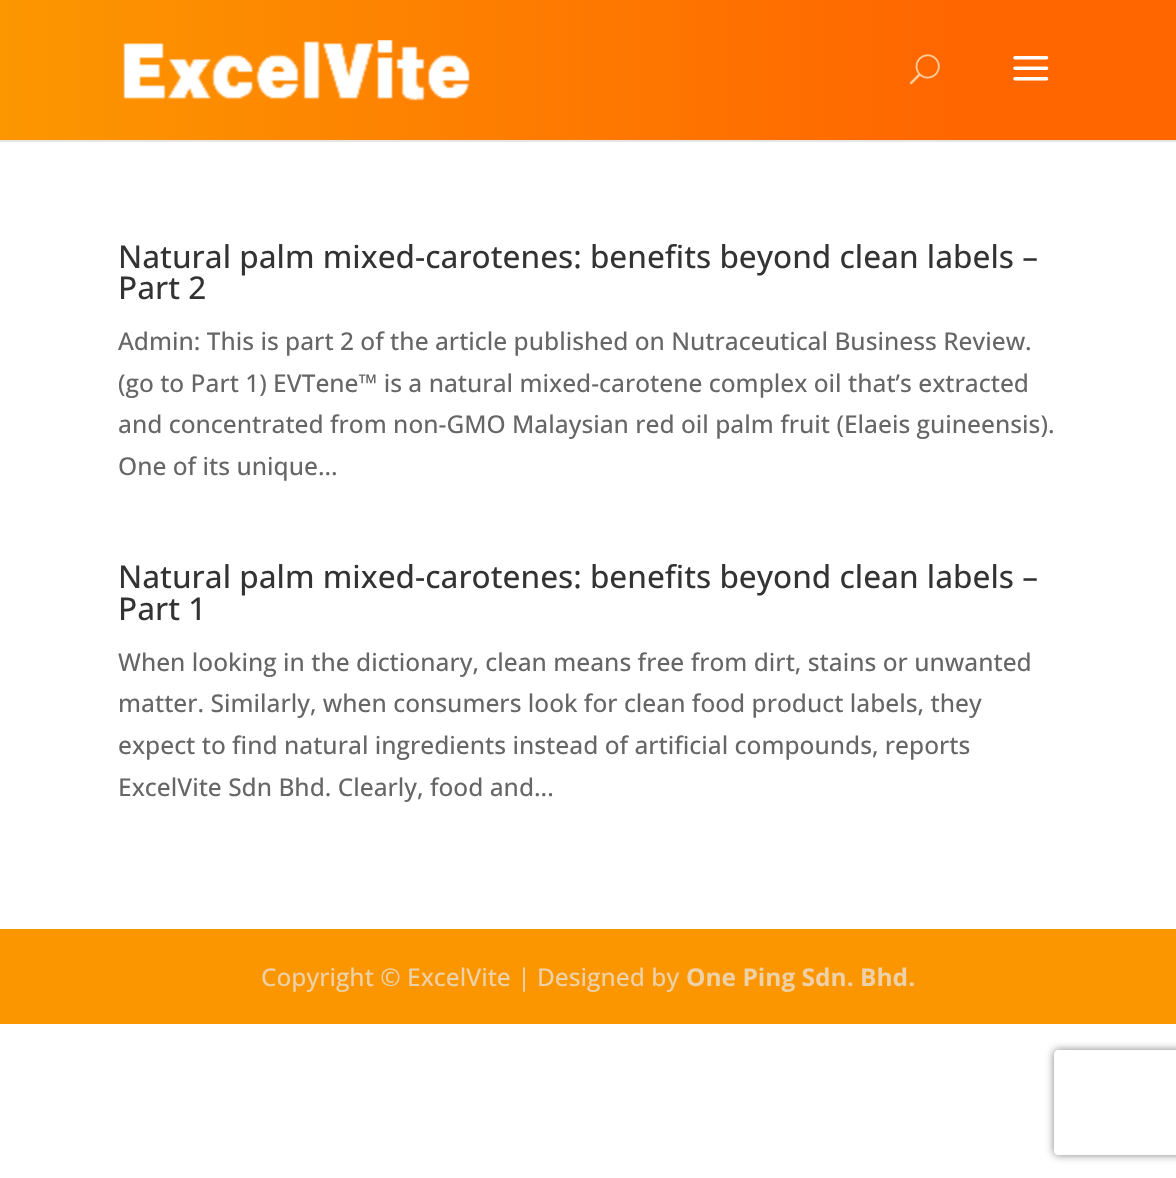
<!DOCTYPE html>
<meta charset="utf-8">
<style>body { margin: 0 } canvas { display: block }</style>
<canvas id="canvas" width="1176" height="1178"></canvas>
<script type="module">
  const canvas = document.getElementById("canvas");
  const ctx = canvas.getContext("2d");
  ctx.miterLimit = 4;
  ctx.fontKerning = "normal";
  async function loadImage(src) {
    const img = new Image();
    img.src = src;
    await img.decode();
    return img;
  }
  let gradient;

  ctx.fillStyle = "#ffffff";
  ctx.fillRect(0, 0, 1176, 1178);
  ctx.fillStyle = "#e6e6e6";
  ctx.fillRect(0, 140, 1176, 2);
  gradient = ctx.createLinearGradient(0, 70, 1176, 70);
  gradient.addColorStop(0, "#fc9700");
  gradient.addColorStop(0.81, "#ff6600");
  gradient.addColorStop(1, "#ff6600");
  ctx.fillStyle = gradient;
  ctx.fillRect(0, 0, 1176, 140);
  ctx.drawImage(await loadImage("img1.png"), 123, 40, 347, 61);
  ctx.drawImage(await loadImage("img2.png"), 909, 54, 31, 31);
  ctx.drawImage(await loadImage("img3.png"), 1013, 56, 36, 25);
  ctx.font = "500 31.5px Open Sans";
  ctx.fillStyle = "#333333";
  ctx.fillText("Natural palm mixed-carotenes: benefits beyond clean labels –", 118, 268);
  ctx.fillText("Part 2", 118, 299);
  ctx.font = "500 24.5px Open Sans";
  ctx.fillStyle = "#666666";
  ctx.fillText("Admin: This is part 2 of the article published on Nutraceutical Business Review.", 118, 350);
  ctx.fillText("(go to Part 1) EVTene™ is a natural mixed-carotene complex oil that’s extracted", 118, 392);
  ctx.fillText("and concentrated from non-GMO Malaysian red oil palm fruit (Elaeis guineensis).", 118, 433);
  ctx.fillText("One of its unique...", 118, 475);
  ctx.font = "500 31.5px Open Sans";
  ctx.fillStyle = "#333333";
  ctx.fillText("Natural palm mixed-carotenes: benefits beyond clean labels –", 118, 588);
  ctx.fillText("Part 1", 118, 620);
  ctx.font = "500 24.5px Open Sans";
  ctx.fillStyle = "#666666";
  ctx.fillText("When looking in the dictionary, clean means free from dirt, stains or unwanted", 118, 671);
  ctx.fillText("matter. Similarly, when consumers look for clean food product labels, they", 118, 712);
  ctx.fillText("expect to find natural ingredients instead of artificial compounds, reports", 118, 754);
  ctx.fillText("ExcelVite Sdn Bhd. Clearly, food and...", 118, 796);
  ctx.fillStyle = "#fc9600";
  ctx.fillRect(0, 929, 1176, 95);
  ctx.fillStyle = "#edd1a8";
  ctx.fillText("Copyright © ExcelVite | Designed by", 261, 986);
  ctx.font = "bold 24.5px Open Sans";
  ctx.fillText("One Ping Sdn. Bhd.", 686, 986);
  ctx.save();
  ctx.beginPath();
  ctx.moveTo(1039, 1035);
  ctx.lineTo(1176, 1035);
  ctx.lineTo(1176, 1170);
  ctx.lineTo(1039, 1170);
  ctx.closePath();
  ctx.moveTo(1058, 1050);
  ctx.lineTo(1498, 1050);
  ctx.bezierCurveTo(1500, 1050, 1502, 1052, 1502, 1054);
  ctx.lineTo(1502, 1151);
  ctx.bezierCurveTo(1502, 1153, 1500, 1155, 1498, 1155);
  ctx.lineTo(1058, 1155);
  ctx.bezierCurveTo(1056, 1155, 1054, 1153, 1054, 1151);
  ctx.lineTo(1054, 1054);
  ctx.bezierCurveTo(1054, 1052, 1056, 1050, 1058, 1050);
  ctx.closePath();
  ctx.clip("evenodd");
  ctx.fillStyle = "#808080";
  ctx.filter = "blur(4.5px)";
  ctx.beginPath();
  ctx.roundRect(1054, 1050, 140, 105, 4);
  ctx.fill();
  ctx.filter = "none";
  ctx.restore();
</script>
